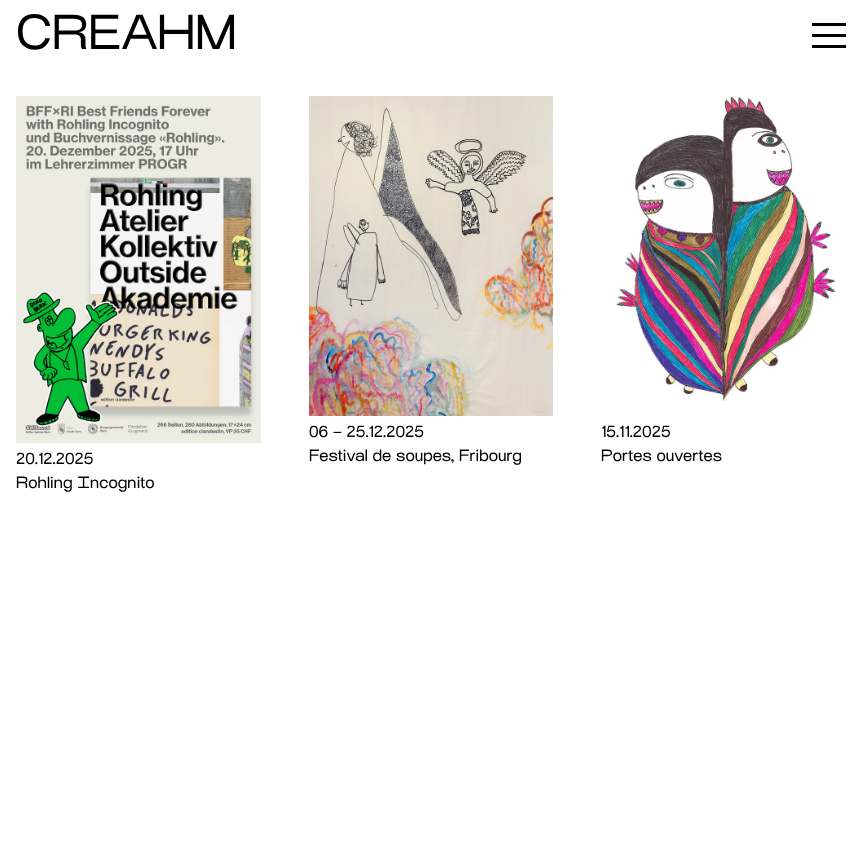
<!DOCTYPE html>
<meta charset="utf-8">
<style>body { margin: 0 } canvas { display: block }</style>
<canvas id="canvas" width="862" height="854"></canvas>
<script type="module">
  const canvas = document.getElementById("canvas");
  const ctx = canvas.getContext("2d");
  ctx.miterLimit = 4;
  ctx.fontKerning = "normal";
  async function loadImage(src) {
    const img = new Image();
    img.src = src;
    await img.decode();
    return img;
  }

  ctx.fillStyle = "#ffffff";
  ctx.fillRect(0, 0, 862, 854);
  ctx.font = "48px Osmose";
  ctx.fillStyle = "#000000";
  ctx.fillText("CREAHM", 16, 49);
  ctx.fillRect(812, 23, 34, 3);
  ctx.fillRect(812, 34, 34, 3);
  ctx.fillRect(812, 45, 34, 3);
  ctx.drawImage(await loadImage("img1.png"), 309, 96, 244, 320);
  ctx.font = "16px Osmose";
  ctx.fillText("06 – 25.12.2025", 309, 437);
  ctx.fillText("Festival de soupes, Fribourg", 309, 461);
  ctx.drawImage(await loadImage("img2.png"), 615, 96, 221, 305);
  ctx.fillText("15.11.2025", 601, 437);
  ctx.fillText("Portes ouvertes", 601, 461);
  ctx.drawImage(await loadImage("img3.png"), 16, 96, 245, 347);
  ctx.fillText("20.12.2025", 16, 464);
  ctx.fillText("Rohling Incognito", 16, 488);
</script>
